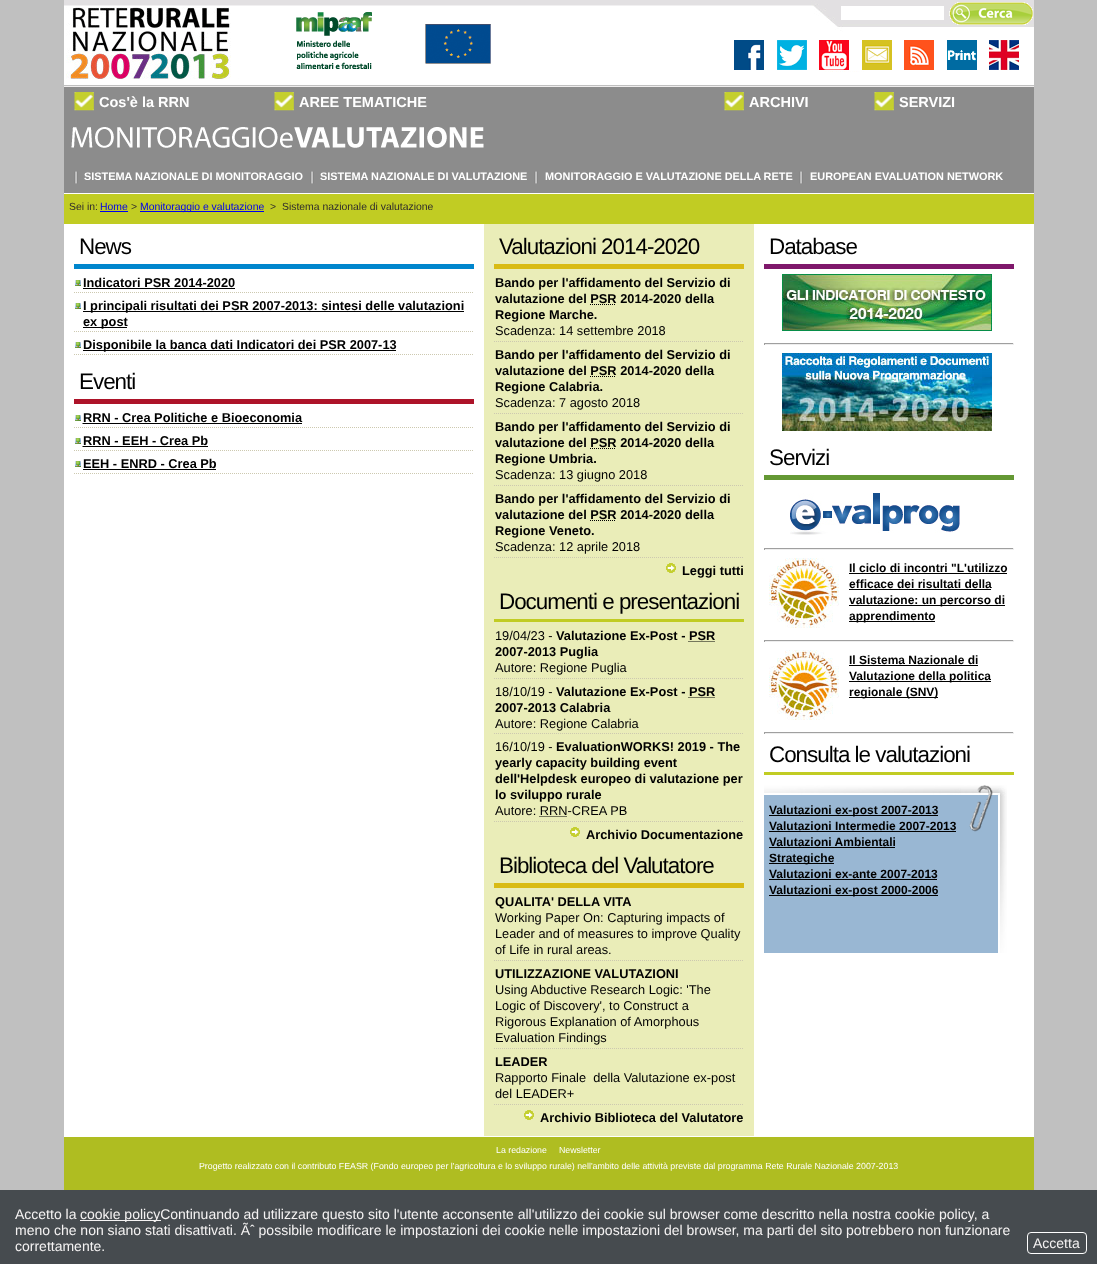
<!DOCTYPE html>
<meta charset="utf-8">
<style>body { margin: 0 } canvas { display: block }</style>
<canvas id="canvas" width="1097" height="1264"></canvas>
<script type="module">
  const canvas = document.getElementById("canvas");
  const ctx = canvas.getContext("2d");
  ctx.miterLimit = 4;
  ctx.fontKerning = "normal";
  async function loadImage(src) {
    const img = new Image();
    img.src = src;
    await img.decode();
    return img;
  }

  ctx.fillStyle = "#c0c0c0";
  ctx.fillRect(0, 0, 1097, 1264);
  ctx.fillStyle = "#ffffff";
  ctx.fillRect(64, 79, 970, 6);
  ctx.drawImage(await loadImage("img1.png"), 64, 0, 970, 79);
  ctx.fillRect(841, 6, 103, 14);
  ctx.drawImage(await loadImage("img2.png"), 949, 2, 84, 23);
  ctx.fillStyle = "#efeded";
  ctx.fillRect(64, 86, 970, 1);
  ctx.fillStyle = "#8c8c8c";
  ctx.fillRect(64, 87, 970, 106);
  ctx.drawImage(await loadImage("img3.png"), 74, 92, 20, 19);
  ctx.font = "bold 14.5px Liberation Sans";
  ctx.fillStyle = "#ffffff";
  ctx.fillText("Cos'è la RRN", 99, 107);
  ctx.drawImage(await loadImage("img3.png"), 274, 92, 20, 19);
  ctx.fillText("AREE TEMATICHE", 299, 107);
  ctx.drawImage(await loadImage("img3.png"), 724, 92, 20, 19);
  ctx.fillText("ARCHIVI", 749, 107);
  ctx.drawImage(await loadImage("img4.png"), 874, 92, 20, 19);
  ctx.fillText("SERVIZI", 899, 107);
  ctx.drawImage(await loadImage("img5.png"), 71, 127, 413, 21);
  ctx.drawImage(await loadImage("img6.png"), 74, 171, 4, 13);
  ctx.font = "bold 10.9px Liberation Sans";
  ctx.fillText("SISTEMA NAZIONALE DI MONITORAGGIO", 84, 180);
  ctx.drawImage(await loadImage("img6.png"), 310, 171, 4, 13);
  ctx.fillText("SISTEMA NAZIONALE DI VALUTAZIONE", 320, 180);
  ctx.drawImage(await loadImage("img6.png"), 534, 171, 4, 13);
  ctx.fillText("MONITORAGGIO E VALUTAZIONE DELLA RETE", 545, 180);
  ctx.drawImage(await loadImage("img6.png"), 799, 171, 4, 13);
  ctx.fillText("EUROPEAN EVALUATION NETWORK", 810, 180);
  ctx.fillRect(64, 193, 970, 944);
  ctx.fillStyle = "#c1cc23";
  ctx.fillRect(64, 194, 970, 30);
  ctx.font = "10.4px Liberation Sans";
  ctx.fillStyle = "#2f2c2c";
  ctx.fillText("Sei in:", 69, 210);
  ctx.fillStyle = "#0000ee";
  ctx.fillText("Home", 100, 210);
  ctx.fillRect(100, 211, 28, 1);
  ctx.fillStyle = "#2f2c2c";
  ctx.fillText(">", 131, 210);
  ctx.fillStyle = "#0000ee";
  ctx.fillRect(140, 211, 124, 1);
  ctx.fillText("Monitoraggio e valutazione", 140, 210);
  ctx.fillStyle = "#2f2c2c";
  ctx.fillText(">", 270, 210);
  ctx.fillText("Sistema nazionale di valutazione", 282, 210);
  ctx.fillStyle = "#0086cd";
  ctx.fillRect(74, 264, 400, 5);
  ctx.letterSpacing = "-1px";
  ctx.font = "22.4px Liberation Sans";
  ctx.fillStyle = "#000000";
  ctx.fillText("News", 79, 254);
  ctx.drawImage(await loadImage("img7.png"), 75, 280, 6, 6);
  ctx.beginPath();
  ctx.moveTo(74, 292.5);
  ctx.lineTo(474, 292.5);
  ctx.strokeStyle = "#cdc9b0";
  ctx.setLineDash([1, 1]);
  ctx.stroke();
  ctx.letterSpacing = "0px";
  ctx.font = "bold 12.8px Liberation Sans";
  ctx.fillText("Indicatori PSR 2014-2020", 83, 287);
  ctx.fillRect(83, 288, 61, 1);
  ctx.beginPath();
  ctx.moveTo(143.5, 288.5);
  ctx.lineTo(170, 288.5);
  ctx.strokeStyle = "#000000";
  ctx.stroke();
  ctx.fillRect(144, 288, 91, 1);
  ctx.drawImage(await loadImage("img7.png"), 75, 303, 6, 6);
  ctx.beginPath();
  ctx.moveTo(74, 331.5);
  ctx.lineTo(474, 331.5);
  ctx.strokeStyle = "#cdc9b0";
  ctx.stroke();
  ctx.fillRect(83, 311, 381, 1);
  ctx.fillText("I principali risultati dei PSR 2007-2013: sintesi delle valutazioni", 83, 310);
  ctx.fillRect(83, 327, 44, 1);
  ctx.fillText("ex post", 83, 326);
  ctx.drawImage(await loadImage("img7.png"), 75, 342, 6, 6);
  ctx.beginPath();
  ctx.moveTo(74, 354.5);
  ctx.lineTo(474, 354.5);
  ctx.stroke();
  ctx.fillRect(83, 350, 313, 1);
  ctx.fillText("Disponibile la banca dati Indicatori dei PSR 2007-13", 83, 349);
  ctx.fillStyle = "#ad1329";
  ctx.fillRect(74, 399, 400, 5);
  ctx.letterSpacing = "-1px";
  ctx.font = "22.4px Liberation Sans";
  ctx.fillStyle = "#000000";
  ctx.fillText("Eventi", 79, 389);
  ctx.drawImage(await loadImage("img7.png"), 75, 415, 6, 6);
  ctx.beginPath();
  ctx.moveTo(74, 427.5);
  ctx.lineTo(474, 427.5);
  ctx.stroke();
  ctx.letterSpacing = "0px";
  ctx.font = "bold 12.8px Liberation Sans";
  ctx.fillText("RRN - Crea Politiche e Bioeconomia", 83, 422);
  ctx.beginPath();
  ctx.moveTo(82.5, 423.5);
  ctx.lineTo(110, 423.5);
  ctx.strokeStyle = "#000000";
  ctx.stroke();
  ctx.fillRect(83, 423, 219, 1);
  ctx.drawImage(await loadImage("img7.png"), 75, 438, 6, 6);
  ctx.beginPath();
  ctx.moveTo(74, 450.5);
  ctx.lineTo(474, 450.5);
  ctx.strokeStyle = "#cdc9b0";
  ctx.stroke();
  ctx.fillText("RRN - EEH - Crea Pb", 83, 445);
  ctx.beginPath();
  ctx.moveTo(82.5, 446.5);
  ctx.lineTo(110, 446.5);
  ctx.strokeStyle = "#000000";
  ctx.stroke();
  ctx.fillRect(83, 446, 125, 1);
  ctx.drawImage(await loadImage("img7.png"), 75, 461, 6, 6);
  ctx.beginPath();
  ctx.moveTo(74, 473.5);
  ctx.lineTo(474, 473.5);
  ctx.strokeStyle = "#cdc9b0";
  ctx.stroke();
  ctx.fillText("EEH - ENRD - Crea Pb", 83, 468);
  ctx.fillRect(83, 469, 133, 1);
  ctx.fillStyle = "#eaedb8";
  ctx.fillRect(484, 224, 270, 912);
  ctx.fillStyle = "#d9bb14";
  ctx.fillRect(494, 264, 250, 5);
  ctx.letterSpacing = "-1px";
  ctx.font = "22.4px Liberation Sans";
  ctx.fillStyle = "#000000";
  ctx.fillText("Valutazioni 2014-2020", 499, 254);
  ctx.beginPath();
  ctx.moveTo(494, 341.5);
  ctx.lineTo(744, 341.5);
  ctx.stroke();
  ctx.letterSpacing = "0px";
  ctx.font = "bold 12.8px Liberation Sans";
  ctx.fillText("Bando per l'affidamento del Servizio di", 495, 287);
  ctx.fillText("valutazione del PSR 2014-2020 della", 495, 303);
  ctx.beginPath();
  ctx.moveTo(590, 304.5);
  ctx.lineTo(616, 304.5);
  ctx.strokeStyle = "#000000";
  ctx.stroke();
  ctx.fillText("Regione Marche.", 495, 319);
  ctx.font = "12.8px Liberation Sans";
  ctx.fillText("Scadenza: 14 settembre 2018", 495, 335);
  ctx.beginPath();
  ctx.moveTo(494, 413.5);
  ctx.lineTo(744, 413.5);
  ctx.strokeStyle = "#cdc9b0";
  ctx.stroke();
  ctx.font = "bold 12.8px Liberation Sans";
  ctx.fillText("Bando per l'affidamento del Servizio di", 495, 359);
  ctx.fillText("valutazione del PSR 2014-2020 della", 495, 375);
  ctx.beginPath();
  ctx.moveTo(590, 376.5);
  ctx.lineTo(616, 376.5);
  ctx.strokeStyle = "#000000";
  ctx.stroke();
  ctx.fillText("Regione Calabria.", 495, 391);
  ctx.font = "12.8px Liberation Sans";
  ctx.fillText("Scadenza: 7 agosto 2018", 495, 407);
  ctx.beginPath();
  ctx.moveTo(494, 485.5);
  ctx.lineTo(744, 485.5);
  ctx.strokeStyle = "#cdc9b0";
  ctx.stroke();
  ctx.font = "bold 12.8px Liberation Sans";
  ctx.fillText("Bando per l'affidamento del Servizio di", 495, 431);
  ctx.fillText("valutazione del PSR 2014-2020 della", 495, 447);
  ctx.beginPath();
  ctx.moveTo(590, 448.5);
  ctx.lineTo(616, 448.5);
  ctx.strokeStyle = "#000000";
  ctx.stroke();
  ctx.fillText("Regione Umbria.", 495, 463);
  ctx.font = "12.8px Liberation Sans";
  ctx.fillText("Scadenza: 13 giugno 2018", 495, 479);
  ctx.beginPath();
  ctx.moveTo(494, 557.5);
  ctx.lineTo(744, 557.5);
  ctx.strokeStyle = "#cdc9b0";
  ctx.stroke();
  ctx.font = "bold 12.8px Liberation Sans";
  ctx.fillText("Bando per l'affidamento del Servizio di", 495, 503);
  ctx.fillText("valutazione del PSR 2014-2020 della", 495, 519);
  ctx.beginPath();
  ctx.moveTo(590, 520.5);
  ctx.lineTo(616, 520.5);
  ctx.strokeStyle = "#000000";
  ctx.stroke();
  ctx.fillText("Regione Veneto.", 495, 535);
  ctx.font = "12.8px Liberation Sans";
  ctx.fillText("Scadenza: 12 aprile 2018", 495, 551);
  ctx.drawImage(await loadImage("img8.png"), 666, 563, 10, 10);
  ctx.font = "bold 12.8px Liberation Sans";
  ctx.fillText("Leggi tutti", 682, 575);
  ctx.fillStyle = "#c1cc23";
  ctx.fillRect(494, 619, 250, 3);
  ctx.letterSpacing = "-1px";
  ctx.font = "22.4px Liberation Sans";
  ctx.fillStyle = "#000000";
  ctx.fillText("Documenti e presentazioni", 499, 609);
  ctx.beginPath();
  ctx.moveTo(494, 678.5);
  ctx.lineTo(744, 678.5);
  ctx.strokeStyle = "#cdc9b0";
  ctx.stroke();
  ctx.letterSpacing = "0px";
  ctx.font = "12.8px Liberation Sans";
  ctx.fillText("19/04/23 -", 495, 640);
  ctx.font = "bold 12.8px Liberation Sans";
  ctx.fillText("Valutazione Ex-Post - PSR", 556, 640);
  ctx.beginPath();
  ctx.moveTo(688.5, 641.5);
  ctx.lineTo(715, 641.5);
  ctx.strokeStyle = "#000000";
  ctx.stroke();
  ctx.fillText("2007-2013 Puglia", 495, 656);
  ctx.font = "12.8px Liberation Sans";
  ctx.fillText("Autore: Regione Puglia", 495, 672);
  ctx.beginPath();
  ctx.moveTo(494, 733.5);
  ctx.lineTo(744, 733.5);
  ctx.strokeStyle = "#cdc9b0";
  ctx.stroke();
  ctx.fillText("18/10/19 -", 495, 696);
  ctx.font = "bold 12.8px Liberation Sans";
  ctx.fillText("Valutazione Ex-Post - PSR", 556, 696);
  ctx.beginPath();
  ctx.moveTo(688.5, 697.5);
  ctx.lineTo(715, 697.5);
  ctx.strokeStyle = "#000000";
  ctx.stroke();
  ctx.fillText("2007-2013 Calabria", 495, 712);
  ctx.font = "12.8px Liberation Sans";
  ctx.fillText("Autore: Regione Calabria", 495, 728);
  ctx.beginPath();
  ctx.moveTo(494, 821.5);
  ctx.lineTo(744, 821.5);
  ctx.strokeStyle = "#cdc9b0";
  ctx.stroke();
  ctx.fillText("16/10/19 -", 495, 751);
  ctx.font = "bold 12.8px Liberation Sans";
  ctx.fillText("EvaluationWORKS! 2019 - The", 556, 751);
  ctx.fillText("yearly capacity building event", 495, 767);
  ctx.fillText("dell'Helpdesk europeo di valutazione per", 495, 783);
  ctx.fillText("lo sviluppo rurale", 495, 799);
  ctx.font = "12.8px Liberation Sans";
  ctx.fillText("Autore: RRN-CREA PB", 495, 815);
  ctx.beginPath();
  ctx.moveTo(539.5, 816.5);
  ctx.lineTo(567, 816.5);
  ctx.strokeStyle = "#000000";
  ctx.stroke();
  ctx.drawImage(await loadImage("img8.png"), 570, 827, 10, 10);
  ctx.font = "bold 12.8px Liberation Sans";
  ctx.fillText("Archivio Documentazione", 586, 839);
  ctx.fillStyle = "#d9bb14";
  ctx.fillRect(494, 883, 250, 5);
  ctx.letterSpacing = "-1px";
  ctx.font = "22.4px Liberation Sans";
  ctx.fillStyle = "#000000";
  ctx.fillText("Biblioteca del Valutatore", 499, 873);
  ctx.beginPath();
  ctx.moveTo(494, 960.5);
  ctx.lineTo(744, 960.5);
  ctx.strokeStyle = "#cdc9b0";
  ctx.stroke();
  ctx.letterSpacing = "0px";
  ctx.font = "bold 12.8px Liberation Sans";
  ctx.fillText("QUALITA' DELLA VITA", 495, 906);
  ctx.font = "12.8px Liberation Sans";
  ctx.fillText("Working Paper On: Capturing impacts of", 495, 922);
  ctx.fillText("Leader and of measures to improve Quality", 495, 938);
  ctx.fillText("of Life in rural areas.", 495, 954);
  ctx.beginPath();
  ctx.moveTo(494, 1048.5);
  ctx.lineTo(744, 1048.5);
  ctx.stroke();
  ctx.font = "bold 12.8px Liberation Sans";
  ctx.fillText("UTILIZZAZIONE VALUTAZIONI", 495, 978);
  ctx.font = "12.8px Liberation Sans";
  ctx.fillText("Using Abductive Research Logic: 'The", 495, 994);
  ctx.fillText("Logic of Discovery', to Construct a", 495, 1010);
  ctx.fillText("Rigorous Explanation of Amorphous", 495, 1026);
  ctx.fillText("Evaluation Findings", 495, 1042);
  ctx.beginPath();
  ctx.moveTo(494, 1104.5);
  ctx.lineTo(744, 1104.5);
  ctx.stroke();
  ctx.font = "bold 12.8px Liberation Sans";
  ctx.fillText("LEADER", 495, 1066);
  ctx.font = "12.8px Liberation Sans";
  ctx.fillText("Rapporto Finale  della Valutazione ex-post", 495, 1082);
  ctx.fillText("del LEADER+", 495, 1098);
  ctx.drawImage(await loadImage("img8.png"), 524, 1110, 10, 10);
  ctx.font = "bold 12.8px Liberation Sans";
  ctx.fillText("Archivio Biblioteca del Valutatore", 540, 1122);
  ctx.fillStyle = "#7f186b";
  ctx.fillRect(764, 264, 250, 5);
  ctx.letterSpacing = "-1px";
  ctx.font = "22.4px Liberation Sans";
  ctx.fillStyle = "#000000";
  ctx.fillText("Database", 769, 254);
  ctx.drawImage(await loadImage("img9.png"), 782, 274, 210, 57);
  ctx.fillStyle = "#9f9f9f";
  ctx.fillRect(764, 343, 250, 1);
  ctx.fillStyle = "#eeeeee";
  ctx.fillRect(1013, 343, 1, 2);
  ctx.fillRect(764, 344, 250, 1);
  ctx.fillStyle = "#9f9f9f";
  ctx.fillRect(764, 343, 1, 2);
  ctx.drawImage(await loadImage("img10.png"), 782, 353, 210, 78);
  ctx.fillStyle = "#649834";
  ctx.fillRect(764, 475, 250, 5);
  ctx.fillStyle = "#000000";
  ctx.fillText("Servizi", 769, 465);
  ctx.drawImage(await loadImage("img11.png"), 790, 493, 170, 42);
  ctx.fillStyle = "#9f9f9f";
  ctx.fillRect(764, 548, 250, 1);
  ctx.fillStyle = "#eeeeee";
  ctx.fillRect(1013, 548, 1, 2);
  ctx.fillRect(764, 549, 250, 1);
  ctx.fillStyle = "#9f9f9f";
  ctx.fillRect(764, 548, 1, 2);
  ctx.drawImage(await loadImage("img12.png"), 769, 558, 70, 70);
  ctx.letterSpacing = "0px";
  ctx.font = "bold 12px Liberation Sans";
  ctx.fillStyle = "#000000";
  ctx.fillText("Il ciclo di incontri \"L'utilizzo", 849, 572);
  ctx.fillRect(849, 573, 158, 1);
  ctx.fillText("efficace dei risultati della", 849, 588);
  ctx.fillRect(849, 589, 142, 1);
  ctx.fillRect(849, 605, 156, 1);
  ctx.fillText("valutazione: un percorso di", 849, 604);
  ctx.fillRect(849, 621, 86, 1);
  ctx.fillText("apprendimento", 849, 620);
  ctx.fillStyle = "#9f9f9f";
  ctx.fillRect(764, 640, 250, 1);
  ctx.fillStyle = "#eeeeee";
  ctx.fillRect(1013, 640, 1, 2);
  ctx.fillRect(764, 641, 250, 1);
  ctx.fillStyle = "#9f9f9f";
  ctx.fillRect(764, 640, 1, 2);
  ctx.drawImage(await loadImage("img12.png"), 769, 650, 70, 70);
  ctx.fillStyle = "#000000";
  ctx.fillText("Il Sistema Nazionale di", 849, 664);
  ctx.fillRect(849, 665, 129, 1);
  ctx.fillRect(849, 681, 142, 1);
  ctx.fillText("Valutazione della politica", 849, 680);
  ctx.fillRect(849, 697, 89, 1);
  ctx.fillText("regionale (SNV)", 849, 696);
  ctx.fillStyle = "#9f9f9f";
  ctx.fillRect(764, 732, 250, 1);
  ctx.fillStyle = "#eeeeee";
  ctx.fillRect(1013, 732, 1, 2);
  ctx.fillRect(764, 733, 250, 1);
  ctx.fillStyle = "#9f9f9f";
  ctx.fillRect(764, 732, 1, 2);
  ctx.fillStyle = "#c1cc23";
  ctx.fillRect(764, 772, 250, 3);
  ctx.letterSpacing = "-1px";
  ctx.font = "22.4px Liberation Sans";
  ctx.fillStyle = "#000000";
  ctx.fillText("Consulta le valutazioni", 769, 762);
  ctx.drawImage(await loadImage("img13.png"), 764, 785, 243, 168);
  ctx.fillRect(769, 815, 169, 1);
  ctx.letterSpacing = "0px";
  ctx.font = "bold 12px Liberation Sans";
  ctx.fillText("Valutazioni ex-post 2007-2013", 769, 814);
  ctx.fillText("Valutazioni Intermedie 2007-2013", 769, 830);
  ctx.fillRect(769, 831, 187, 1);
  ctx.fillText("Valutazioni Ambientali", 769, 846);
  ctx.fillRect(769, 847, 126, 1);
  ctx.fillRect(769, 863, 65, 1);
  ctx.fillText("Strategiche", 769, 862);
  ctx.fillText("Valutazioni ex-ante 2007-2013", 769, 878);
  ctx.fillRect(769, 879, 168, 1);
  ctx.fillRect(769, 895, 169, 1);
  ctx.fillText("Valutazioni ex-post 2000-2006", 769, 894);
  ctx.fillStyle = "#afbd21";
  ctx.fillRect(64, 1137, 970, 53);
  ctx.font = "8.8px Liberation Sans";
  ctx.fillStyle = "#ffffff";
  ctx.fillText("La redazione", 496, 1153);
  ctx.fillText("Newsletter", 559, 1153);
  ctx.fillText("Progetto realizzato con il contributo FEASR (Fondo europeo per l'agricoltura e lo sviluppo rurale) nell'ambito delle attività previste dal programma Rete Rurale Nazionale 2007-2013", 199, 1169);
  ctx.fillStyle = "#464b4f";
  ctx.fillRect(0, 1190, 1097, 74);
  ctx.font = "14px Liberation Sans";
  ctx.fillStyle = "#f5f3f3";
  ctx.fillText("Accetto la", 15, 1219);
  ctx.fillRect(80, 1220, 81, 1);
  ctx.fillText("cookie policyContinuando ad utilizzare questo sito l'utente acconsente all'utilizzo dei cookie sul browser come descritto nella nostra cookie policy, a", 80, 1219);
  ctx.fillText("meno che non siano stati disattivati. Ãˆ possibile modificare le impostazioni dei cookie nelle impostazioni del browser, ma parti del sito potrebbero non funzionare", 15, 1235);
  ctx.fillText("correttamente.", 15, 1251);
  ctx.beginPath();
  ctx.roundRect(1027.5, 1232.5, 59, 21, 3.5);
  ctx.strokeStyle = "#ffffff";
  ctx.setLineDash([]);
  ctx.stroke();
  ctx.fillText("Accetta", 1033, 1248);
</script>
